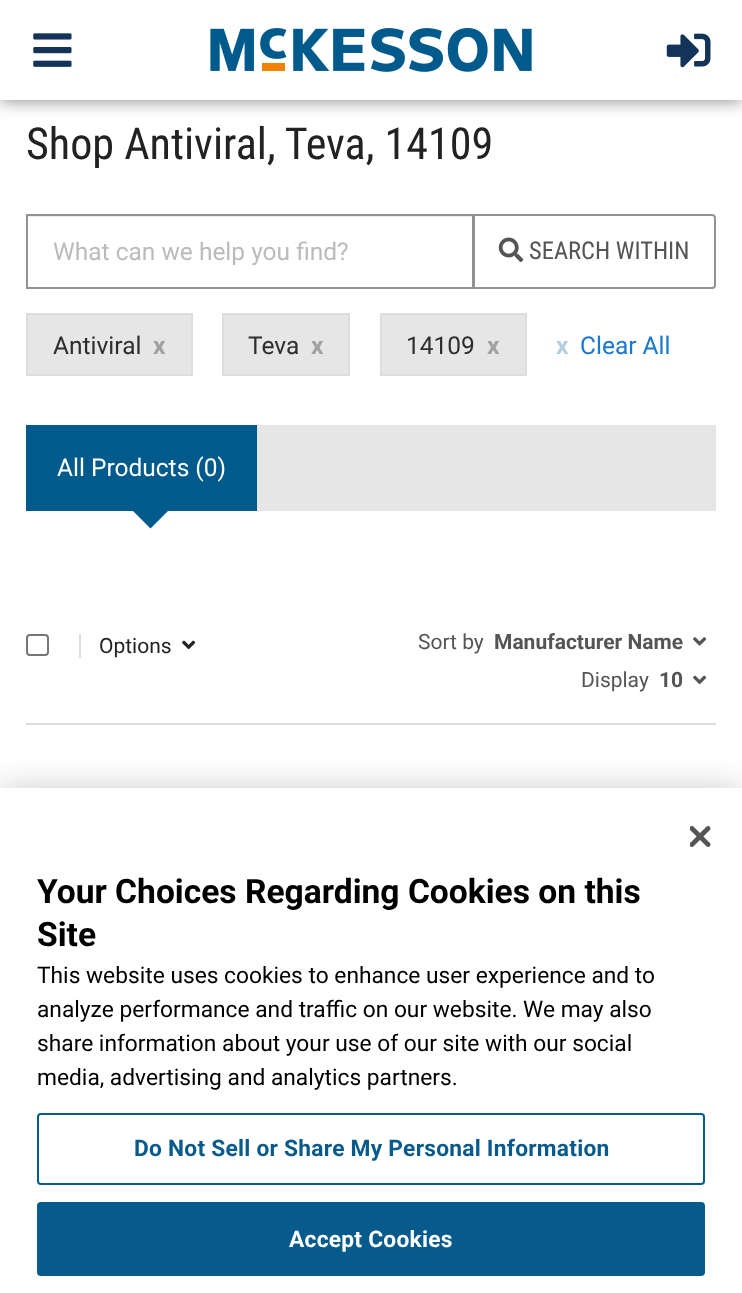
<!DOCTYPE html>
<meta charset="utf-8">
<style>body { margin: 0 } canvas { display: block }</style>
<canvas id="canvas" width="742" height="1293"></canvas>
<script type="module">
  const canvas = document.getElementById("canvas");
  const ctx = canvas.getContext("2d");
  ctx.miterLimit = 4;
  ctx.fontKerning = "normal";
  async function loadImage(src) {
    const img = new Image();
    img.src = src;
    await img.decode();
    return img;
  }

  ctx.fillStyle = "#ffffff";
  ctx.fillRect(0, 0, 742, 1293);
  ctx.fillStyle = "rgba(0, 0, 0, 0.5)";
  ctx.filter = "blur(9px)";
  ctx.beginPath();
  ctx.rect(0, 0, 742, 100);
  ctx.fill();
  ctx.filter = "none";
  ctx.fillStyle = "#ffffff";
  ctx.fillRect(0, 0, 742, 100);
  ctx.drawImage(await loadImage("img1.png"), 33, 33, 39, 34);
  ctx.drawImage(await loadImage("img2.png"), 210, 28, 322, 44);
  ctx.drawImage(await loadImage("img3.png"), 666, 33, 45, 35);
  ctx.font = "44.1px Roboto Condensed";
  ctx.fillStyle = "#222222";
  ctx.fillText("Shop Antiviral, Teva, 14109", 26, 159);
  ctx.fillStyle = "#ececec";
  ctx.fillRect(28, 216, 445, 1);
  ctx.strokeStyle = "#929292";
  ctx.lineWidth = 2;
  ctx.strokeRect(27, 215, 446, 73);
  ctx.font = "24.5px Roboto";
  ctx.fillStyle = "#bbbbbb";
  ctx.fillText("What can we help you find?", 53, 260);
  ctx.fillStyle = "#ffffff";
  ctx.beginPath();
  ctx.roundRect(474, 215, 241, 73, [0, 3, 3, 0]);
  ctx.fill();
  ctx.stroke();
  ctx.drawImage(await loadImage("img4.png"), 498, 237, 26, 25);
  ctx.font = "24.5px Roboto Condensed";
  ctx.fillStyle = "#555555";
  ctx.fillText("SEARCH WITHIN", 529, 259);
  ctx.fillStyle = "#e6e6e6";
  ctx.beginPath();
  ctx.rect(27, 314, 165, 61);
  ctx.fill();
  ctx.strokeStyle = "#dddddd";
  ctx.stroke();
  ctx.font = "24.5px Roboto";
  ctx.fillStyle = "#2e2e2e";
  ctx.fillText("Antiviral", 53, 354);
  ctx.font = "bold 24.5px Roboto";
  ctx.fillStyle = "#a1a1a1";
  ctx.fillText("x", 153, 354);
  ctx.fillStyle = "#e6e6e6";
  ctx.beginPath();
  ctx.rect(223, 314, 126, 61);
  ctx.fill();
  ctx.stroke();
  ctx.font = "24.5px Roboto";
  ctx.fillStyle = "#2e2e2e";
  ctx.fillText("Teva", 248, 354);
  ctx.font = "bold 24.5px Roboto";
  ctx.fillStyle = "#a1a1a1";
  ctx.fillText("x", 311, 354);
  ctx.fillStyle = "#e6e6e6";
  ctx.beginPath();
  ctx.rect(381, 314, 145, 61);
  ctx.fill();
  ctx.stroke();
  ctx.font = "24.5px Roboto";
  ctx.fillStyle = "#2e2e2e";
  ctx.fillText("14109", 406, 354);
  ctx.font = "bold 24.5px Roboto";
  ctx.fillStyle = "#a1a1a1";
  ctx.fillText("x", 487, 354);
  ctx.fillStyle = "#b3cedd";
  ctx.fillText("x", 556, 354);
  ctx.font = "24.5px Roboto";
  ctx.fillStyle = "#1879cd";
  ctx.fillText("Clear All", 580, 354);
  ctx.fillStyle = "#e6e6e6";
  ctx.fillRect(257, 425, 459, 86);
  ctx.fillStyle = "#005a8c";
  ctx.fillRect(26, 425, 231, 86);
  ctx.fillStyle = "#ffffff";
  ctx.fillText("All Products (0)", 57, 476);
  ctx.fillStyle = "#005a8c";
  ctx.beginPath();
  ctx.moveTo(133, 511);
  ctx.lineTo(168, 511);
  ctx.lineTo(150.5, 528.5);
  ctx.closePath();
  ctx.fill();
  ctx.fillStyle = "#dddddd";
  ctx.fillRect(26, 723, 690, 2);
  ctx.beginPath();
  ctx.roundRect(27, 635, 21, 20, 3);
  ctx.strokeStyle = "#767676";
  ctx.stroke();
  ctx.fillRect(79, 634, 2, 24);
  ctx.font = "21px Roboto";
  ctx.fillStyle = "#222222";
  ctx.fillText("Options", 99, 653);
  ctx.drawImage(await loadImage("img5.png"), 182, 640, 14, 10);
  ctx.fillStyle = "#555555";
  ctx.fillText("Sort by", 418, 649);
  ctx.font = "bold 21px Roboto";
  ctx.fillText("Manufacturer Name", 494, 649);
  ctx.drawImage(await loadImage("img6.png"), 693, 637, 14, 9);
  ctx.font = "21px Roboto";
  ctx.fillText("Display", 581, 687);
  ctx.font = "bold 21px Roboto";
  ctx.fillText("10", 659, 687);
  ctx.drawImage(await loadImage("img7.png"), 693, 675, 14, 10);
  ctx.fillStyle = "rgba(0, 0, 0, 0.2)";
  ctx.filter = "blur(16px)";
  ctx.beginPath();
  ctx.rect(0, 788, 742, 505);
  ctx.fill();
  ctx.filter = "none";
  ctx.fillStyle = "#ffffff";
  ctx.fillRect(0, 788, 742, 505);
  ctx.drawImage(await loadImage("img8.png"), 690, 826, 21, 21);
  ctx.font = "bold 33.6px Roboto";
  ctx.fillStyle = "#000000";
  ctx.fillText("Your Choices Regarding Cookies on this", 37, 903);
  ctx.fillText("Site", 37, 946);
  ctx.font = "22.75px Roboto";
  ctx.fillText("This website uses cookies to enhance user experience and to", 37, 983);
  ctx.fillText("analyze performance and traffic on our website. We may also", 37, 1017);
  ctx.fillText("share information about your use of our site with our social", 37, 1051);
  ctx.fillText("media, advertising and analytics partners.", 37, 1085);
  ctx.beginPath();
  ctx.roundRect(38, 1114, 666, 70, 3);
  ctx.strokeStyle = "#075b8c";
  ctx.stroke();
  ctx.letterSpacing = "0.25px";
  ctx.font = "bold 22.75px Roboto";
  ctx.fillStyle = "#075b8c";
  ctx.fillText("Do Not Sell or Share My Personal Information", 134, 1156);
  ctx.beginPath();
  ctx.roundRect(38, 1203, 666, 72, 3);
  ctx.fill();
  ctx.stroke();
  ctx.fillStyle = "#ffffff";
  ctx.fillText("Accept Cookies", 289, 1247);
</script>
